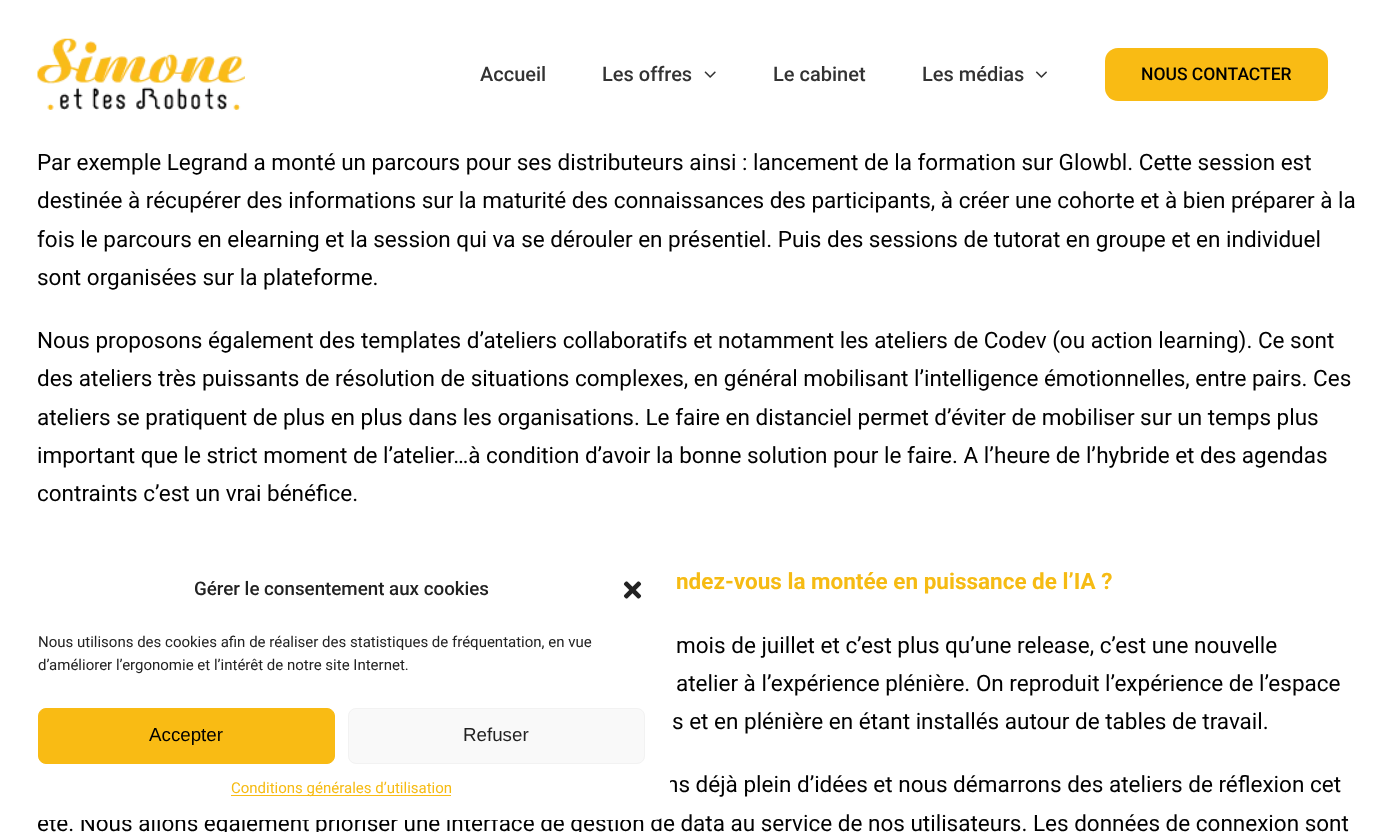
<!DOCTYPE html>
<meta charset="utf-8">
<style>body { margin: 0 } canvas { display: block }</style>
<canvas id="canvas" width="1396" height="832"></canvas>
<script type="module">
  const canvas = document.getElementById("canvas");
  const ctx = canvas.getContext("2d");
  ctx.miterLimit = 4;
  ctx.fontKerning = "normal";
  async function loadImage(src) {
    const img = new Image();
    img.src = src;
    await img.decode();
    return img;
  }

  ctx.fillStyle = "#ffffff";
  ctx.fillRect(0, 0, 1396, 832);
  ctx.drawImage(await loadImage("img1.png"), 37, 38, 208, 72);
  ctx.font = "500 20px Roboto";
  ctx.fillStyle = "#333333";
  ctx.fillText("Accueil", 480, 81);
  ctx.fillText("Les offres", 602, 81);
  ctx.drawImage(await loadImage("img2.png"), 704, 71, 12, 7);
  ctx.fillText("Le cabinet", 773, 81);
  ctx.fillText("Les médias", 922, 81);
  ctx.drawImage(await loadImage("img3.png"), 1035, 71, 12, 7);
  ctx.fillStyle = "#f9bb14";
  ctx.beginPath();
  ctx.roundRect(1105, 48, 223, 53, 13);
  ctx.fill();
  ctx.font = "500 17.5px Roboto";
  ctx.fillStyle = "#000000";
  ctx.fillText("NOUS CONTACTER", 1141, 80);
  ctx.font = "22.5px Roboto";
  ctx.fillText("Par exemple Legrand a monté un parcours pour ses distributeurs ainsi : lancement de la formation sur Glowbl. Cette session est", 37, 170);
  ctx.fillText("destinée à récupérer des informations sur la maturité des connaissances des participants, à créer une cohorte et à bien préparer à la", 37, 208);
  ctx.fillText("fois le parcours en elearning et la session qui va se dérouler en présentiel. Puis des sessions de tutorat en groupe et en individuel", 37, 247);
  ctx.fillText("sont organisées sur la plateforme.", 37, 285);
  ctx.fillText("Nous proposons également des templates d’ateliers collaboratifs et notamment les ateliers de Codev (ou action learning). Ce sont", 37, 348);
  ctx.fillText("des ateliers très puissants de résolution de situations complexes, en général mobilisant l’intelligence émotionnelles, entre pairs. Ces", 37, 386);
  ctx.fillText("ateliers se pratiquent de plus en plus dans les organisations. Le faire en distanciel permet d’éviter de mobiliser sur un temps plus", 37, 425);
  ctx.fillText("important que le strict moment de l’atelier…à condition d’avoir la bonne solution pour le faire. A l’heure de l’hybride et des agendas", 37, 463);
  ctx.fillText("contraints c’est un vrai bénéfice.", 37, 501);
  ctx.font = "bold 22.5px Roboto";
  ctx.fillStyle = "#f6bb13";
  ctx.fillText("ndez-vous la montée en puissance de l’IA ?", 676, 589);
  ctx.font = "22.5px Roboto";
  ctx.fillStyle = "#000000";
  ctx.fillText("mois de juillet et c’est plus qu’une release, c’est une nouvelle", 676, 653);
  ctx.fillText("atelier à l’expérience plénière. On reproduit l’expérience de l’espace", 676, 691);
  ctx.fillText("s et en plénière en étant installés autour de tables de travail.", 672, 729);
  ctx.fillText("ns déjà plein d’idées et nous démarrons des ateliers de réflexion cet", 666, 792);
  ctx.fillText("été. Nous allons également prioriser une interface de gestion de data au service de nos utilisateurs. Les données de connexion sont", 37, 831);
  ctx.fillStyle = "#ffffff";
  ctx.beginPath();
  ctx.roundRect(13, 555, 657, 265, 15);
  ctx.fill();
  ctx.font = "500 18.75px Roboto";
  ctx.fillStyle = "#222222";
  ctx.fillText("Gérer le consentement aux cookies", 194, 595);
  ctx.drawImage(await loadImage("img4.png"), 623, 581, 19, 18);
  ctx.font = "15px Roboto";
  ctx.fillText("Nous utilisons des cookies afin de réaliser des statistiques de fréquentation, en vue", 38, 647);
  ctx.fillText("d’améliorer l’ergonomie et l’intérêt de notre site Internet.", 38, 670);
  ctx.fillStyle = "#f9bb14";
  ctx.beginPath();
  ctx.roundRect(38.5, 708.5, 296, 55, 7.5);
  ctx.fill();
  ctx.strokeStyle = "#f9bb14";
  ctx.stroke();
  ctx.font = "18.75px Liberation Sans";
  ctx.fillStyle = "#000000";
  ctx.fillText("Accepter", 149, 741);
  ctx.fillStyle = "#f9f9f9";
  ctx.beginPath();
  ctx.roundRect(348.5, 708.5, 296, 55, 7.5);
  ctx.fill();
  ctx.strokeStyle = "#f2f2f2";
  ctx.stroke();
  ctx.fillStyle = "#222222";
  ctx.fillText("Refuser", 463, 741);
  ctx.fillStyle = "#f9bb14";
  ctx.fillRect(231, 795, 220, 1);
  ctx.font = "15px Roboto";
  ctx.fillStyle = "#f6bb13";
  ctx.fillText("Conditions générales d’utilisation", 231, 793);
</script>
